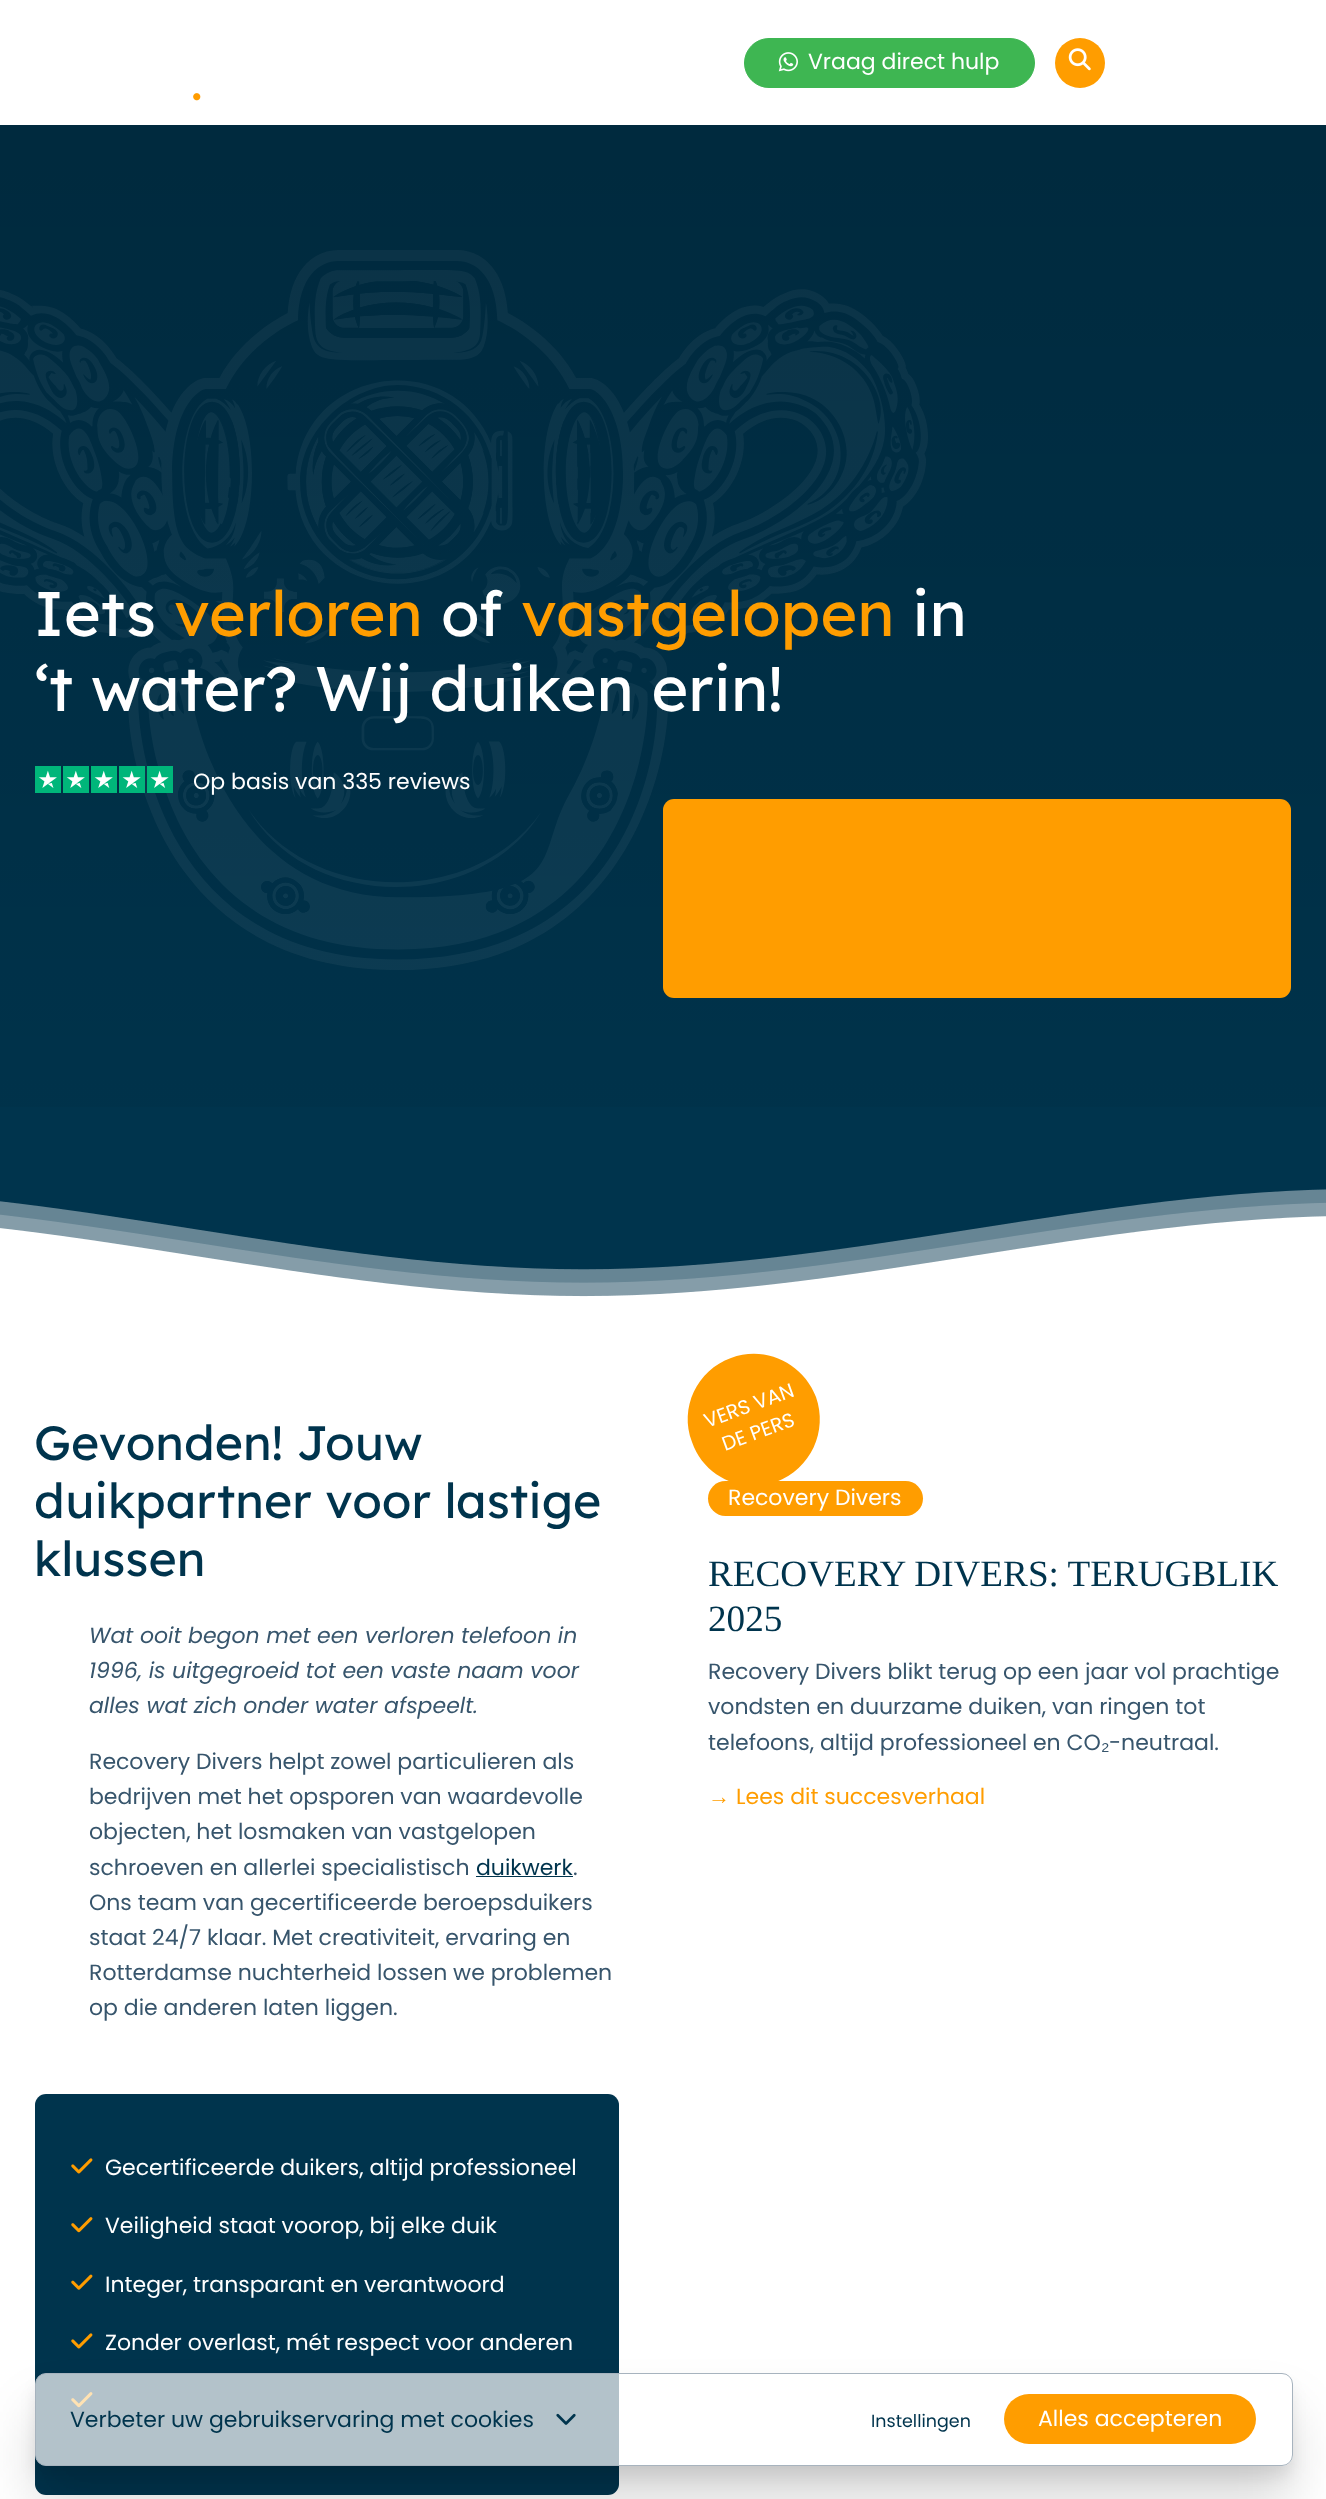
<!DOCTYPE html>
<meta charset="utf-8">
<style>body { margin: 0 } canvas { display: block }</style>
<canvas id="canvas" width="1326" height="2499"></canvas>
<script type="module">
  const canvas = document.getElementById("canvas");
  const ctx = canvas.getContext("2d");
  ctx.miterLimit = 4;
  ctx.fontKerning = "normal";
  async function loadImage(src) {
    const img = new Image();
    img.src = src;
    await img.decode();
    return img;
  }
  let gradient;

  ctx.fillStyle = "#ffffff";
  ctx.fillRect(0, 0, 1326, 2499);
  ctx.fillStyle = "#3eb652";
  ctx.beginPath();
  ctx.roundRect(744.5, 38.5, 290, 49, 24.5);
  ctx.fill();
  ctx.strokeStyle = "#3eb652";
  ctx.stroke();
  ctx.drawImage(await loadImage("img1.png"), 778, 52, 20, 20);
  ctx.font = "22px Poppins";
  ctx.fillStyle = "#ffffff";
  ctx.fillText("Vraag direct hulp", 808, 69);
  ctx.fillStyle = "#ff9d00";
  ctx.beginPath();
  ctx.arc(1080, 63, 25, 0, Math.PI * 2);
  ctx.fill();
  ctx.drawImage(await loadImage("img2.png"), 1068, 48, 23, 23);
  ctx.drawImage(await loadImage("img3.png"), 193, 93, 8, 8);
  ctx.fillStyle = "#00344d";
  ctx.fillRect(0, 125, 1326, 1172);
  ctx.drawImage(await loadImage("img4.png"), 0, 250, 928, 720);
  gradient = ctx.createLinearGradient(663, 1304, 663, 125);
  gradient.addColorStop(0, "rgba(0, 0, 0, 0)");
  gradient.addColorStop(1, "rgba(0, 0, 0, 0.2)");
  ctx.fillStyle = gradient;
  ctx.fillRect(0, 125, 1326, 982);
  ctx.font = "62.75px Lexend";
  ctx.fillStyle = "#ffffff";
  ctx.fillText("Iets", 34, 636);
  ctx.fillStyle = "#ff9d00";
  ctx.fillText("verloren", 174, 636);
  ctx.fillStyle = "#ffffff";
  ctx.fillText("of", 441, 636);
  ctx.fillStyle = "#ff9d00";
  ctx.fillText("vastgelopen", 521, 636);
  ctx.fillStyle = "#ffffff";
  ctx.fillText("in", 912, 636);
  ctx.fillText("‘t water? Wij duiken erin!", 34, 711);
  ctx.drawImage(await loadImage("img5.png"), 35, 766, 138, 27);
  ctx.font = "22px Poppins";
  ctx.fillText("Op basis van 335 reviews", 193, 789);
  ctx.fillStyle = "#ff9d00";
  ctx.beginPath();
  ctx.roundRect(663, 799, 628, 199, 11);
  ctx.fill();
  ctx.drawImage(await loadImage("img6.png"), 0, 1189, 1326, 115);
  ctx.font = "48.25px Lexend";
  ctx.fillStyle = "#00344d";
  ctx.fillText("Gevonden! Jouw", 34, 1460);
  ctx.fillText("duikpartner voor lastige", 34, 1518);
  ctx.fillText("klussen", 34, 1576);
  ctx.font = "italic 22px Poppins";
  ctx.fillStyle = "#37556c";
  ctx.fillText("Wat ooit begon met een verloren telefoon in", 89, 1643);
  ctx.fillText("1996, is uitgegroeid tot een vaste naam voor", 89, 1678);
  ctx.fillText("alles wat zich onder water afspeelt.", 89, 1713);
  ctx.font = "22px Poppins";
  ctx.fillText("Recovery Divers helpt zowel particulieren als", 89, 1769);
  ctx.fillText("bedrijven met het opsporen van waardevolle", 89, 1804);
  ctx.fillText("objecten, het losmaken van vastgelopen", 89, 1839);
  ctx.fillText("schroeven en allerlei specialistisch", 89, 1875);
  ctx.fillStyle = "#00344d";
  ctx.fillText("duikwerk", 476, 1875);
  ctx.fillRect(476, 1876, 97, 1);
  ctx.fillStyle = "#37556c";
  ctx.fillText(".", 573, 1875);
  ctx.fillText("Ons team van gecertificeerde beroepsduikers", 89, 1910);
  ctx.fillText("staat 24/7 klaar. Met creativiteit, ervaring en", 89, 1945);
  ctx.fillText("Rotterdamse nuchterheid lossen we problemen", 89, 1980);
  ctx.fillText("op die anderen laten liggen.", 89, 2015);
  ctx.fillStyle = "#00344d";
  ctx.beginPath();
  ctx.roundRect(35, 2094, 584, 401, 11);
  ctx.fill();
  ctx.drawImage(await loadImage("img7.png"), 71, 2158, 22, 16);
  ctx.fillStyle = "#ffffff";
  ctx.fillText("Gecertificeerde duikers, altijd professioneel", 105, 2175);
  ctx.drawImage(await loadImage("img8.png"), 71, 2217, 22, 16);
  ctx.fillText("Veiligheid staat voorop, bij elke duik", 105, 2233);
  ctx.drawImage(await loadImage("img9.png"), 71, 2274, 22, 16);
  ctx.fillText("Integer, transparant en verantwoord", 105, 2292);
  ctx.drawImage(await loadImage("img7.png"), 71, 2333, 22, 16);
  ctx.fillText("Zonder overlast, mét respect voor anderen", 105, 2350);
  ctx.drawImage(await loadImage("img8.png"), 71, 2392, 22, 16);
  ctx.fillStyle = "#ff9d00";
  ctx.beginPath();
  ctx.moveTo(731, 1358);
  ctx.bezierCurveTo(765, 1345, 803, 1363, 816, 1397);
  ctx.bezierCurveTo(828, 1431, 811, 1469, 776, 1482);
  ctx.bezierCurveTo(742, 1494, 704, 1477, 692, 1442);
  ctx.bezierCurveTo(679, 1408, 697, 1370, 731, 1358);
  ctx.closePath();
  ctx.fill();
  ctx.font = "20px Poppins";
  ctx.fillStyle = "#ffffff";
  ctx.save();
  ctx.translate(707, 1428);
  ctx.rotate(-20 * Math.PI / 180);
  ctx.fillText("VERS VAN", 0, 0);
  ctx.restore();
  ctx.save();
  ctx.translate(725, 1451);
  ctx.rotate(-20 * Math.PI / 180);
  ctx.fillText("DE PERS", 0, 0);
  ctx.restore();
  ctx.fillStyle = "#ff9d00";
  ctx.beginPath();
  ctx.roundRect(708, 1481, 215, 35, 17.5);
  ctx.fill();
  ctx.font = "22px Poppins";
  ctx.fillStyle = "#ffffff";
  ctx.fillText("Recovery Divers", 728, 1505);
  ctx.font = "37.2px Liberation Serif";
  ctx.fillStyle = "#00344d";
  ctx.fillText("RECOVERY DIVERS: TERUGBLIK", 708, 1586);
  ctx.fillText("2025", 708, 1631);
  ctx.font = "22px Poppins";
  ctx.fillStyle = "#37556c";
  ctx.fillText("Recovery Divers blikt terug op een jaar vol prachtige", 708, 1679);
  ctx.fillText("vondsten en duurzame duiken, van ringen tot", 708, 1714);
  ctx.fillText("telefoons, altijd professioneel en CO", 708, 1750);
  ctx.font = "22px Liberation Sans";
  ctx.fillText("₂", 1101, 1750);
  ctx.font = "22px Poppins";
  ctx.fillText("-neutraal.", 1109, 1750);
  ctx.font = "22px Liberation Sans";
  ctx.fillStyle = "#ff9d00";
  ctx.fillText("→", 708, 1804);
  ctx.font = "22px Poppins";
  ctx.fillText("Lees dit succesverhaal", 736, 1804);
  ctx.save();
  ctx.beginPath();
  ctx.moveTo(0, 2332);
  ctx.lineTo(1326, 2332);
  ctx.lineTo(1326, 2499);
  ctx.lineTo(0, 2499);
  ctx.closePath();
  ctx.moveTo(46, 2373);
  ctx.lineTo(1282, 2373);
  ctx.bezierCurveTo(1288, 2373, 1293, 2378, 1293, 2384);
  ctx.lineTo(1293, 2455);
  ctx.bezierCurveTo(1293, 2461, 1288, 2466, 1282, 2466);
  ctx.lineTo(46, 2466);
  ctx.bezierCurveTo(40, 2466, 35, 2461, 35, 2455);
  ctx.lineTo(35, 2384);
  ctx.bezierCurveTo(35, 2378, 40, 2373, 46, 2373);
  ctx.closePath();
  ctx.clip("evenodd");
  ctx.fillStyle = "rgba(0, 0, 0, 0.15)";
  ctx.filter = "blur(26px)";
  ctx.beginPath();
  ctx.roundRect(36, 2411, 1255, 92, 10);
  ctx.fill();
  ctx.filter = "none";
  ctx.restore();
  ctx.save();
  ctx.beginPath();
  ctx.moveTo(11, 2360);
  ctx.lineTo(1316, 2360);
  ctx.lineTo(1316, 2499);
  ctx.lineTo(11, 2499);
  ctx.closePath();
  ctx.moveTo(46, 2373);
  ctx.lineTo(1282, 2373);
  ctx.bezierCurveTo(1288, 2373, 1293, 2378, 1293, 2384);
  ctx.lineTo(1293, 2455);
  ctx.bezierCurveTo(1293, 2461, 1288, 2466, 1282, 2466);
  ctx.lineTo(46, 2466);
  ctx.bezierCurveTo(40, 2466, 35, 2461, 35, 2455);
  ctx.lineTo(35, 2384);
  ctx.bezierCurveTo(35, 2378, 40, 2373, 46, 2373);
  ctx.closePath();
  ctx.clip("evenodd");
  ctx.fillStyle = "rgba(0, 0, 0, 0.09)";
  ctx.filter = "blur(8px)";
  ctx.beginPath();
  ctx.roundRect(36, 2385, 1255, 91, 10);
  ctx.fill();
  ctx.filter = "none";
  ctx.restore();
  ctx.fillStyle = "rgba(255, 255, 255, 0.7)";
  ctx.beginPath();
  ctx.roundRect(35.5, 2373.5, 1257, 92, 10.5);
  ctx.fill();
  ctx.strokeStyle = "#a7b3be";
  ctx.stroke();
  ctx.fillStyle = "#00344d";
  ctx.fillText("Verbeter uw gebruikservaring met cookies", 70, 2427);
  ctx.drawImage(await loadImage("img10.png"), 556, 2413, 20, 12);
  ctx.font = "17.5px Poppins";
  ctx.fillText("Instellingen", 871, 2427);
  ctx.fillStyle = "#ff9d00";
  ctx.beginPath();
  ctx.roundRect(1004, 2394, 252, 50, 25);
  ctx.fill();
  ctx.font = "22px Poppins";
  ctx.fillStyle = "#ffffff";
  ctx.fillText("Alles accepteren", 1038, 2426);
</script>
